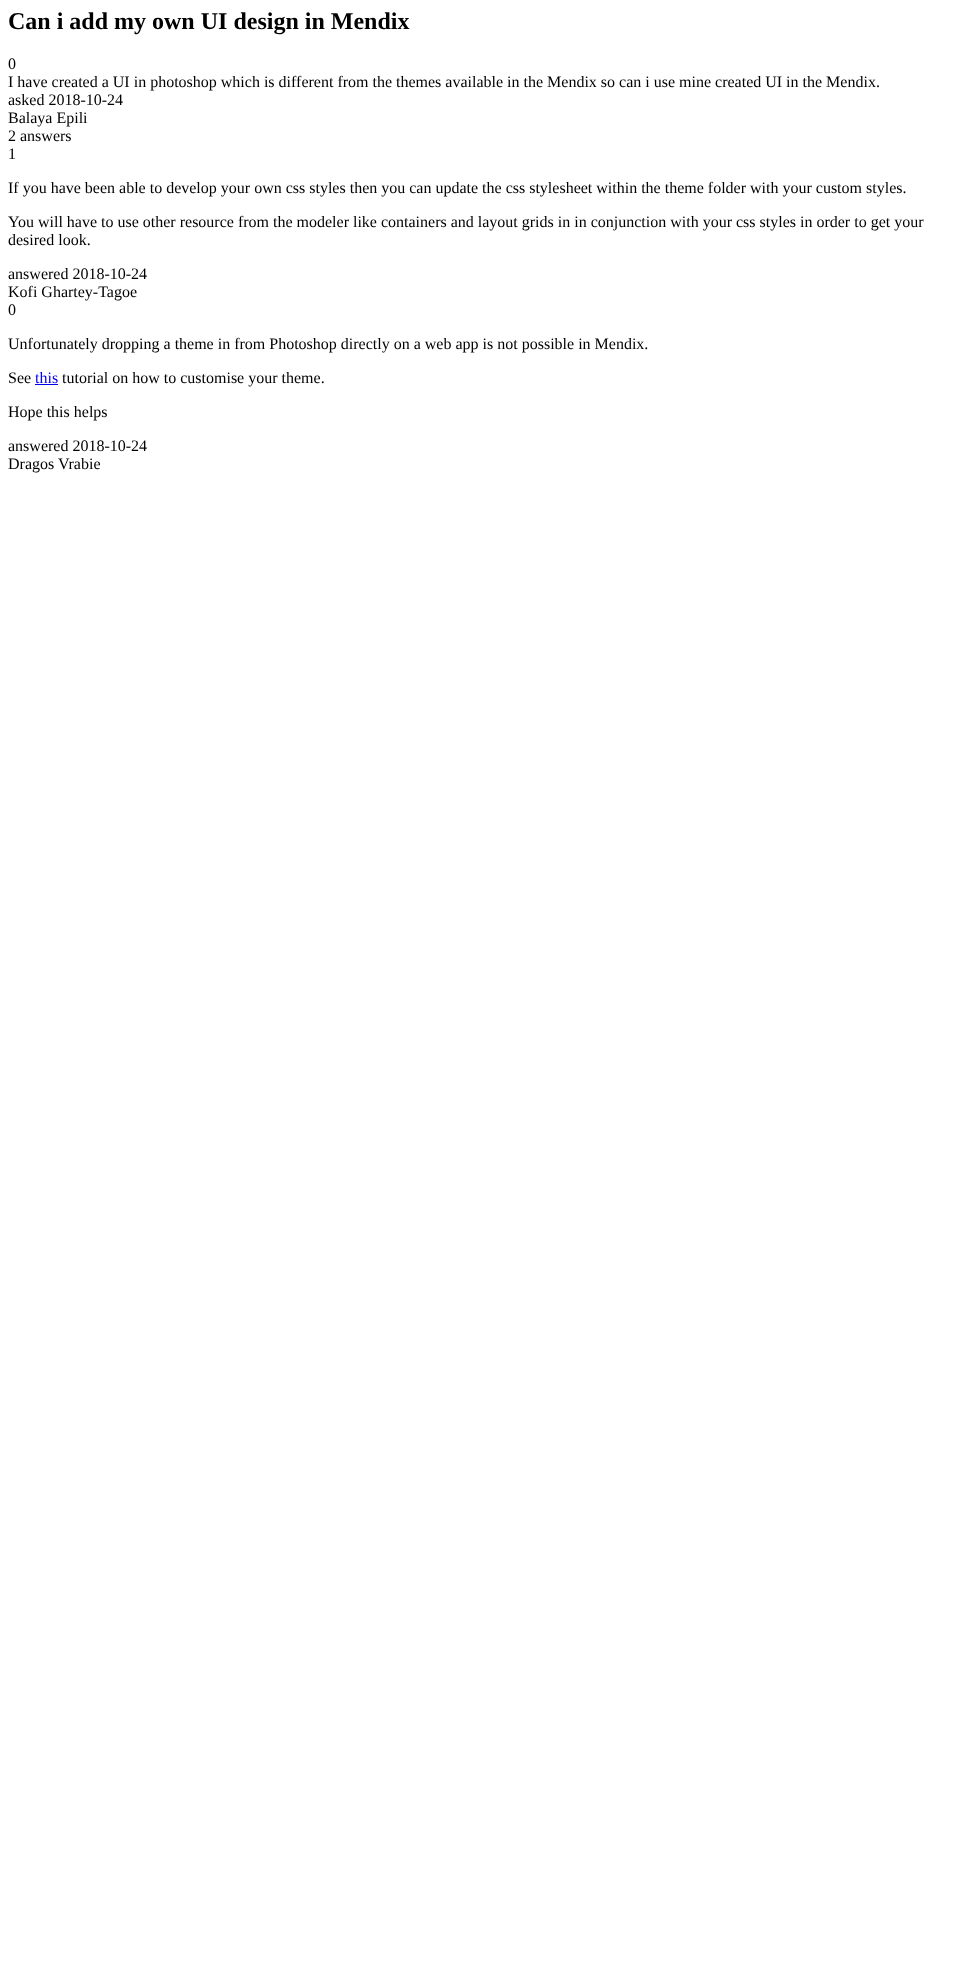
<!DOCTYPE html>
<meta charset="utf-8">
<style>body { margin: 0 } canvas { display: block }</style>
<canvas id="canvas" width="962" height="1977"></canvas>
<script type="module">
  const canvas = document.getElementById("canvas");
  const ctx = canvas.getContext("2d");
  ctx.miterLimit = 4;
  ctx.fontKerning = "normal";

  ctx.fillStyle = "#ffffff";
  ctx.fillRect(0, 0, 962, 1977);
  ctx.font = "bold 24px Liberation Serif";
  ctx.fillStyle = "#000000";
  ctx.fillText("Can i add my own UI design in Mendix", 8, 29);
  ctx.font = "16px Liberation Serif";
  ctx.fillText("0", 8, 69);
  ctx.fillText("I have created a UI in photoshop which is different from the themes available in the Mendix so can i use mine created UI in the Mendix.", 8, 87);
  ctx.fillText("asked 2018-10-24", 8, 105);
  ctx.fillText("Balaya Epili", 8, 123);
  ctx.fillText("2 answers", 8, 141);
  ctx.fillText("1", 8, 159);
  ctx.fillText("If you have been able to develop your own css styles then you can update the css stylesheet within the theme folder with your custom styles.", 8, 193);
  ctx.fillText("You will have to use other resource from the modeler like containers and layout grids in in conjunction with your css styles in order to get your", 8, 227);
  ctx.fillText("desired look.", 8, 245);
  ctx.fillText("answered 2018-10-24", 8, 279);
  ctx.fillText("Kofi Ghartey-Tagoe", 8, 297);
  ctx.fillText("0", 8, 315);
  ctx.fillText("Unfortunately dropping a theme in from Photoshop directly on a web app is not possible in Mendix.", 8, 349);
  ctx.fillText("See", 8, 383);
  ctx.fillStyle = "#0000ee";
  ctx.fillText("this", 35, 383);
  ctx.fillRect(35, 384, 23, 1);
  ctx.fillStyle = "#000000";
  ctx.fillText("tutorial on how to customise your theme.", 62, 383);
  ctx.fillText("Hope this helps", 8, 417);
  ctx.fillText("answered 2018-10-24", 8, 451);
  ctx.fillText("Dragos Vrabie", 8, 469);
</script>
